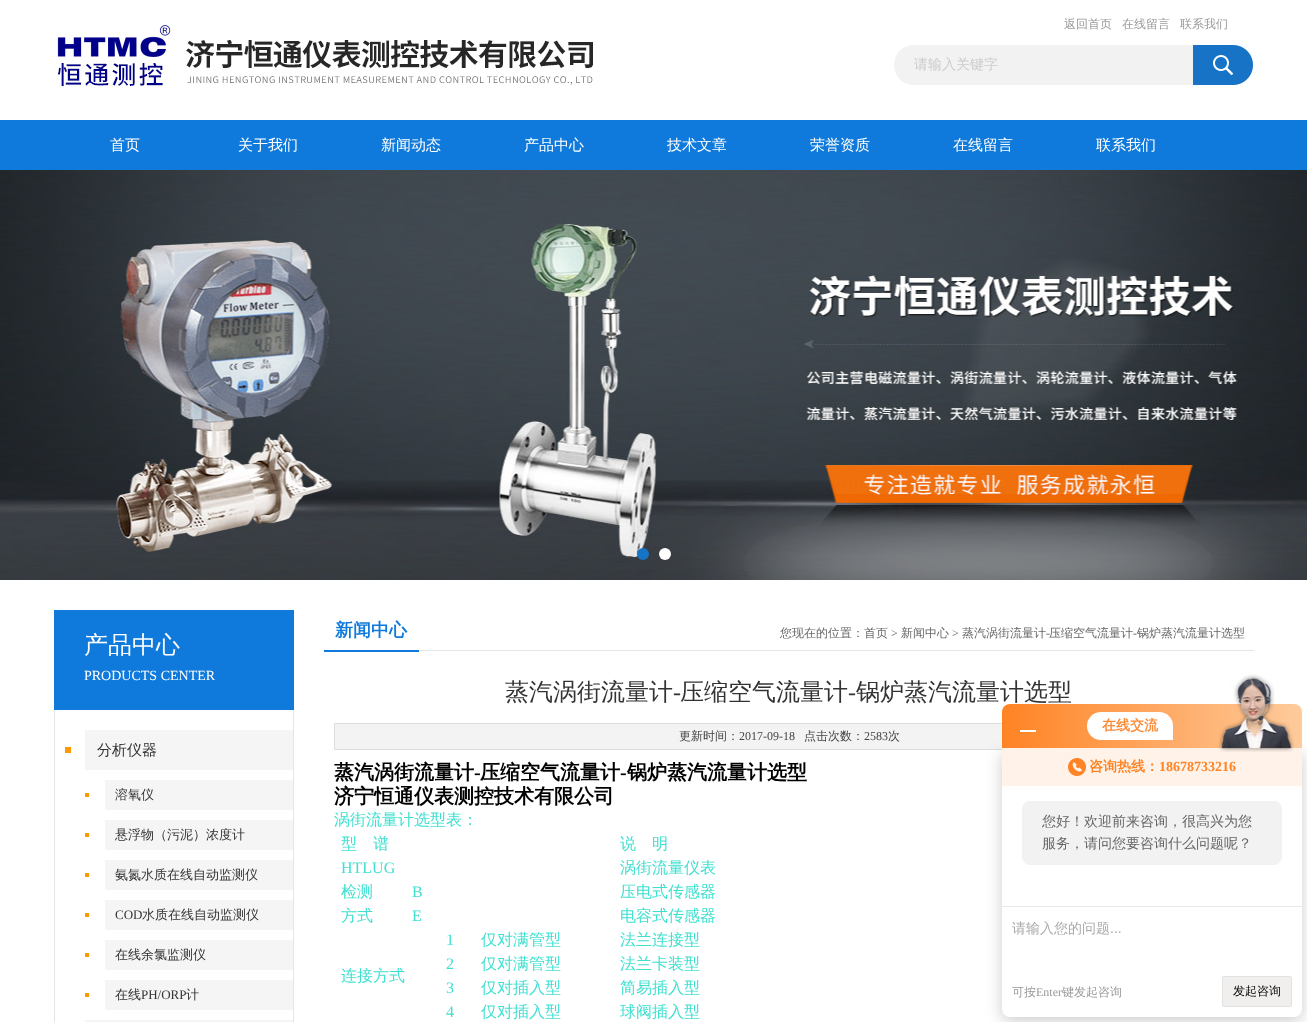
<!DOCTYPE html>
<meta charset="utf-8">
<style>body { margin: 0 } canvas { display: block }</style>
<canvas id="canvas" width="1307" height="1022"></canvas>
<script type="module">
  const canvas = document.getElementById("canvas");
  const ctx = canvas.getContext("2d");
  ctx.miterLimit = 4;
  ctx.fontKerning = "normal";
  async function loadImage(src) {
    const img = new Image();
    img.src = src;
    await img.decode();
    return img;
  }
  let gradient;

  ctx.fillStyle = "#ffffff";
  ctx.fillRect(0, 0, 1307, 1022);
  ctx.drawImage(await loadImage("img1.png"), 57, 24, 536, 62);
  ctx.font = "500 12px WenQuanYi Zen Hei";
  ctx.fillStyle = "#999999";
  ctx.fillText("返回首页", 1064, 28);
  ctx.fillText("在线留言", 1122, 28);
  ctx.fillText("联系我们", 1180, 28);
  ctx.fillStyle = "#f2f2f2";
  ctx.beginPath();
  ctx.roundRect(894, 45, 299, 40, [20, 0, 0, 20]);
  ctx.fill();
  ctx.font = "500 14px WenQuanYi Zen Hei";
  ctx.fillStyle = "#cccccc";
  ctx.fillText("请输入关键字", 914, 69);
  ctx.drawImage(await loadImage("img2.png"), 1193, 45, 60, 40);
  ctx.fillStyle = "#0f7adb";
  ctx.fillRect(0, 120, 1307, 50);
  ctx.font = "500 15px WenQuanYi Zen Hei";
  ctx.fillStyle = "#ffffff";
  ctx.fillText("首页", 110, 150);
  ctx.fillText("关于我们", 238, 150);
  ctx.fillText("新闻动态", 381, 150);
  ctx.fillText("产品中心", 524, 150);
  ctx.fillText("技术文章", 667, 150);
  ctx.fillText("荣誉资质", 810, 150);
  ctx.fillText("在线留言", 953, 150);
  ctx.fillText("联系我们", 1096, 150);
  ctx.drawImage(await loadImage("img3.png"), 0, 170, 1307, 410);
  ctx.fillStyle = "#1773c6";
  ctx.beginPath();
  ctx.arc(643, 554, 6, 0, Math.PI * 2);
  ctx.fill();
  ctx.fillStyle = "#ffffff";
  ctx.beginPath();
  ctx.arc(665, 554, 6, 0, Math.PI * 2);
  ctx.fill();
  ctx.fillStyle = "#0f7adb";
  ctx.fillRect(54, 610, 240, 100);
  ctx.font = "500 24px WenQuanYi Zen Hei";
  ctx.fillStyle = "#ffffff";
  ctx.fillText("产品中心", 84, 653);
  ctx.font = "14px Liberation Serif";
  ctx.fillText("PRODUCTS CENTER", 84, 680);
  ctx.fillStyle = "#e5e5e5";
  ctx.fillRect(293, 710, 1, 312);
  ctx.fillRect(54, 710, 1, 312);
  ctx.fillStyle = "#ff9900";
  ctx.fillRect(65, 747, 6, 6);
  ctx.fillStyle = "#f5f5f5";
  ctx.fillRect(85, 730, 208, 40);
  ctx.font = "500 15px WenQuanYi Zen Hei";
  ctx.fillStyle = "#333333";
  ctx.fillText("分析仪器", 97, 755);
  ctx.fillStyle = "#ff9900";
  ctx.fillRect(85, 793, 4, 4);
  ctx.fillStyle = "#f5f5f5";
  ctx.fillRect(105, 780, 188, 30);
  ctx.font = "500 13px WenQuanYi Zen Hei";
  ctx.fillStyle = "#333333";
  ctx.fillText("溶氧仪", 115, 799);
  ctx.fillStyle = "#ff9900";
  ctx.fillRect(85, 833, 4, 4);
  ctx.fillStyle = "#f5f5f5";
  ctx.fillRect(105, 820, 188, 30);
  ctx.fillStyle = "#333333";
  ctx.fillText("悬浮物（污泥）浓度计", 115, 839);
  ctx.fillStyle = "#ff9900";
  ctx.fillRect(85, 873, 4, 4);
  ctx.fillStyle = "#f5f5f5";
  ctx.fillRect(105, 860, 188, 30);
  ctx.fillStyle = "#333333";
  ctx.fillText("氨氮水质在线自动监测仪", 115, 879);
  ctx.fillStyle = "#ff9900";
  ctx.fillRect(85, 913, 4, 4);
  ctx.fillStyle = "#f5f5f5";
  ctx.fillRect(105, 900, 188, 30);
  ctx.font = "13px Liberation Serif";
  ctx.fillStyle = "#333333";
  ctx.fillText("COD", 115, 919);
  ctx.font = "500 13px WenQuanYi Zen Hei";
  ctx.fillText("水质在线自动监测仪", 142, 919);
  ctx.fillStyle = "#ff9900";
  ctx.fillRect(85, 953, 4, 4);
  ctx.fillStyle = "#f5f5f5";
  ctx.fillRect(105, 940, 188, 30);
  ctx.fillStyle = "#333333";
  ctx.fillText("在线余氯监测仪", 115, 959);
  ctx.fillStyle = "#ff9900";
  ctx.fillRect(85, 993, 4, 4);
  ctx.fillStyle = "#f5f5f5";
  ctx.fillRect(105, 980, 188, 30);
  ctx.fillStyle = "#333333";
  ctx.fillText("在线", 115, 999);
  ctx.font = "13px Liberation Serif";
  ctx.fillText("PH/ORP", 141, 999);
  ctx.font = "500 13px WenQuanYi Zen Hei";
  ctx.fillText("计", 186, 999);
  ctx.fillStyle = "#f5f5f5";
  ctx.fillRect(85, 1020, 208, 2);
  ctx.fillStyle = "#e5e5e5";
  ctx.fillRect(419, 650, 835, 1);
  ctx.fillStyle = "#0f7adb";
  ctx.fillRect(324, 650, 95, 2);
  ctx.font = "bold 18px WenQuanYi Zen Hei";
  ctx.fillText("新闻中心", 335, 636);
  ctx.font = "500 12px WenQuanYi Zen Hei";
  ctx.fillStyle = "#666666";
  ctx.fillText("您现在的位置：首页", 780, 637);
  ctx.font = "12px Liberation Serif";
  ctx.fillText(">", 891, 637);
  ctx.font = "500 12px WenQuanYi Zen Hei";
  ctx.fillText("新闻中心", 901, 637);
  ctx.font = "12px Liberation Serif";
  ctx.fillText(">", 952, 637);
  ctx.font = "500 12px WenQuanYi Zen Hei";
  ctx.fillText("蒸汽涡街流量计", 962, 637);
  ctx.font = "12px Liberation Serif";
  ctx.fillText("-", 1046, 637);
  ctx.font = "500 12px WenQuanYi Zen Hei";
  ctx.fillText("压缩空气流量计", 1049, 637);
  ctx.font = "12px Liberation Serif";
  ctx.fillText("-", 1133, 637);
  ctx.font = "500 12px WenQuanYi Zen Hei";
  ctx.fillText("锅炉蒸汽流量计选型", 1137, 637);
  ctx.font = "500 24px WenQuanYi Zen Hei";
  ctx.fillStyle = "#333333";
  ctx.fillText("蒸汽涡街流量计", 505, 700);
  ctx.font = "24px Liberation Serif";
  ctx.fillText("-", 673, 700);
  ctx.font = "500 24px WenQuanYi Zen Hei";
  ctx.fillText("压缩空气流量计", 680, 700);
  ctx.font = "24px Liberation Serif";
  ctx.fillText("-", 848, 700);
  ctx.font = "500 24px WenQuanYi Zen Hei";
  ctx.fillText("锅炉蒸汽流量计选型", 856, 700);
  ctx.fillStyle = "#f3f3f3";
  ctx.fillRect(335, 724, 667, 25);
  ctx.strokeStyle = "#dddddd";
  ctx.strokeRect(334.5, 723.5, 911, 26);
  ctx.font = "500 12px WenQuanYi Zen Hei";
  ctx.fillStyle = "#444444";
  ctx.fillText("更新时间：", 679, 740);
  ctx.font = "12px Liberation Serif";
  ctx.fillText("2017-09-18", 739, 740);
  ctx.font = "500 12px WenQuanYi Zen Hei";
  ctx.fillText("点击次数：", 804, 740);
  ctx.font = "12px Liberation Serif";
  ctx.fillText("2583", 864, 740);
  ctx.font = "500 12px WenQuanYi Zen Hei";
  ctx.fillText("次", 888, 740);
  ctx.font = "bold 20px WenQuanYi Zen Hei";
  ctx.fillStyle = "#000000";
  ctx.fillText("蒸汽涡街流量计", 334, 779);
  ctx.font = "bold 20px Liberation Serif";
  ctx.fillText("-", 474, 779);
  ctx.font = "bold 20px WenQuanYi Zen Hei";
  ctx.fillText("压缩空气流量计", 480, 779);
  ctx.font = "bold 20px Liberation Serif";
  ctx.fillText("-", 620, 779);
  ctx.font = "bold 20px WenQuanYi Zen Hei";
  ctx.fillText("锅炉蒸汽流量计选型", 627, 779);
  ctx.fillText("济宁恒通仪表测控技术有限公司", 334, 803);
  ctx.font = "500 16px WenQuanYi Zen Hei";
  ctx.fillStyle = "#40e0d0";
  ctx.fillText("涡街流量计选型表：", 334, 825);
  ctx.fillText("型", 341, 849);
  ctx.fillText("谱", 373, 849);
  ctx.fillText("说", 620, 849);
  ctx.fillText("明", 652, 849);
  ctx.font = "16px Liberation Serif";
  ctx.fillText("HTLUG", 341, 873);
  ctx.font = "500 16px WenQuanYi Zen Hei";
  ctx.fillText("涡街流量仪表", 620, 873);
  ctx.fillText("检测", 341, 897);
  ctx.font = "16px Liberation Serif";
  ctx.fillText("B", 412, 897);
  ctx.font = "500 16px WenQuanYi Zen Hei";
  ctx.fillText("压电式传感器", 620, 897);
  ctx.fillText("方式", 341, 921);
  ctx.font = "16px Liberation Serif";
  ctx.fillText("E", 412, 921);
  ctx.font = "500 16px WenQuanYi Zen Hei";
  ctx.fillText("电容式传感器", 620, 921);
  ctx.font = "16px Liberation Serif";
  ctx.fillText("1", 446, 945);
  ctx.font = "500 16px WenQuanYi Zen Hei";
  ctx.fillText("仅对满管型", 481, 945);
  ctx.fillText("法兰连接型", 620, 945);
  ctx.fillText("连接方式", 341, 981);
  ctx.font = "16px Liberation Serif";
  ctx.fillText("2", 446, 969);
  ctx.font = "500 16px WenQuanYi Zen Hei";
  ctx.fillText("仅对满管型", 481, 969);
  ctx.fillText("法兰卡装型", 620, 969);
  ctx.font = "16px Liberation Serif";
  ctx.fillText("3", 446, 993);
  ctx.font = "500 16px WenQuanYi Zen Hei";
  ctx.fillText("仅对插入型", 481, 993);
  ctx.fillText("简易插入型", 620, 993);
  ctx.font = "16px Liberation Serif";
  ctx.fillText("4", 446, 1017);
  ctx.font = "500 16px WenQuanYi Zen Hei";
  ctx.fillText("仅对插入型", 481, 1017);
  ctx.fillText("球阀插入型", 620, 1017);
  ctx.fillStyle = "rgba(0, 0, 0, 0.2)";
  ctx.filter = "blur(8px)";
  ctx.beginPath();
  ctx.roundRect(1002, 752, 300, 269, 8);
  ctx.fill();
  ctx.filter = "none";
  gradient = ctx.createLinearGradient(1002, 726, 1302, 726);
  gradient.addColorStop(0, "#ff8324");
  gradient.addColorStop(1, "#fecb9c");
  ctx.fillStyle = gradient;
  ctx.beginPath();
  ctx.roundRect(1002, 704, 300, 44, [8, 8, 0, 0]);
  ctx.fill();
  ctx.fillStyle = "#ffffff";
  ctx.fillRect(1020, 730, 16, 2);
  ctx.beginPath();
  ctx.roundRect(1087, 712, 86, 28, [14, 14, 0, 14]);
  ctx.fill();
  ctx.font = "bold 14px WenQuanYi Zen Hei";
  ctx.fillStyle = "#fb8b36";
  ctx.fillText("在线交流", 1102, 730);
  ctx.fillStyle = "#ffffff";
  ctx.beginPath();
  ctx.roundRect(1002, 748, 300, 269, [0, 0, 8, 8]);
  ctx.fill();
  ctx.fillStyle = "#fff3e9";
  ctx.fillRect(1002, 748, 300, 38);
  ctx.drawImage(await loadImage("img4.png"), 1218, 674, 76, 78);
  ctx.drawImage(await loadImage("img5.png"), 1068, 758, 18, 18);
  ctx.fillStyle = "#ff8426";
  ctx.fillText("咨询热线：", 1089, 771);
  ctx.font = "bold 14px Liberation Serif";
  ctx.fillText("18678733216", 1159, 771);
  ctx.fillStyle = "#f2f2f2";
  ctx.beginPath();
  ctx.roundRect(1022, 801, 260, 64, 8);
  ctx.fill();
  ctx.font = "500 14px WenQuanYi Zen Hei";
  ctx.fillStyle = "#666666";
  ctx.fillText("您好！欢迎前来咨询，很高兴为您", 1042, 826);
  ctx.fillText("服务，请问您要咨询什么问题呢？", 1042, 848);
  ctx.fillStyle = "#eaeaea";
  ctx.fillRect(1002, 906, 300, 1);
  ctx.fillStyle = "#aaaaaa";
  ctx.fillText("请输入您的问题", 1012, 933);
  ctx.font = "14px Liberation Sans";
  ctx.fillText("...", 1110, 933);
  ctx.font = "500 12px WenQuanYi Zen Hei";
  ctx.fillStyle = "#999999";
  ctx.fillText("可按", 1012, 996);
  ctx.font = "12px Liberation Serif";
  ctx.fillText("Enter", 1036, 996);
  ctx.font = "500 12px WenQuanYi Zen Hei";
  ctx.fillText("键发起咨询", 1062, 996);
  ctx.fillStyle = "#f0efed";
  ctx.beginPath();
  ctx.roundRect(1222.5, 976.5, 69, 30, 1.5);
  ctx.fill();
  ctx.strokeStyle = "#e2e2e2";
  ctx.stroke();
  ctx.fillStyle = "#000000";
  ctx.fillText("发起咨询", 1233, 995);
</script>
